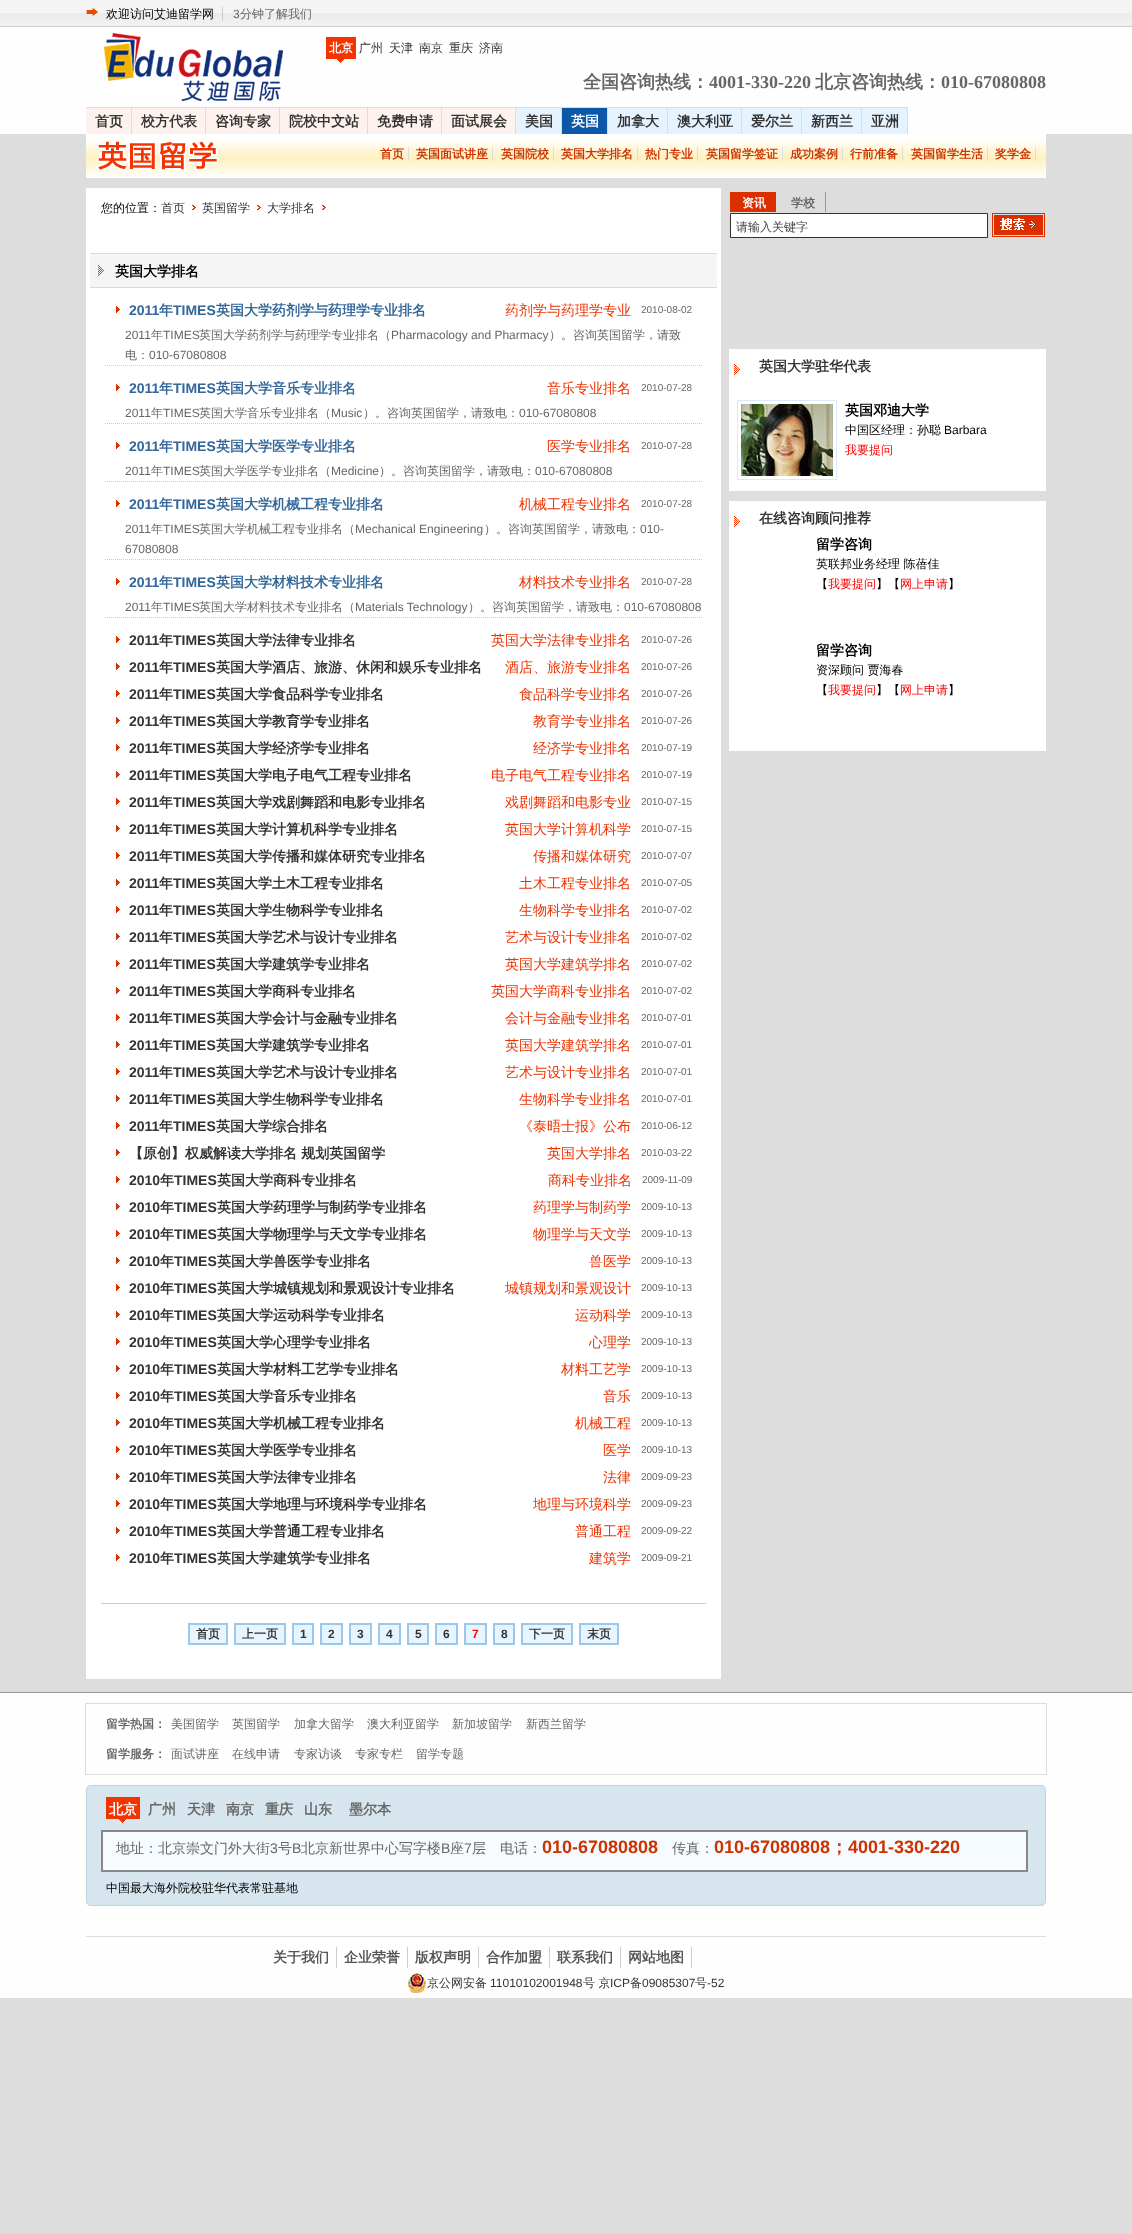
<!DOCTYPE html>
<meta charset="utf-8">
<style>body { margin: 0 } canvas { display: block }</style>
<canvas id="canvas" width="1132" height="2234"></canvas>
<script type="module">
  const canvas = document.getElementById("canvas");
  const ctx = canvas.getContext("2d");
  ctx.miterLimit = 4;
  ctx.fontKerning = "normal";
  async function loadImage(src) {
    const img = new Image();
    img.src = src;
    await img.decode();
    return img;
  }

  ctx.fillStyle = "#dddddd";
  ctx.fillRect(0, 0, 1132, 2234);
  ctx.fillStyle = "#fefefe";
  ctx.fillRect(0, 27, 1132, 107);
  ctx.drawImage(await loadImage("img1.png"), 0, 0, 1132, 27);
  ctx.drawImage(await loadImage("img2.png"), 86, 8, 12, 8);
  ctx.font = "500 12px WenQuanYi Zen Hei";
  ctx.fillStyle = "#000000";
  ctx.fillText("欢迎访问艾迪留学网", 106, 18);
  ctx.font = "12px Liberation Sans";
  ctx.fillStyle = "#666666";
  ctx.fillText("3", 233, 18);
  ctx.fillStyle = "#cccccc";
  ctx.fillRect(222, 7, 1, 14);
  ctx.font = "500 12px WenQuanYi Zen Hei";
  ctx.fillStyle = "#666666";
  ctx.fillText("分钟了解我们", 240, 18);
  ctx.drawImage(await loadImage("img3.png"), 104, 33, 179, 68);
  ctx.drawImage(await loadImage("img4.png"), 326, 37, 30, 26);
  ctx.font = "bold 12px WenQuanYi Zen Hei";
  ctx.fillStyle = "#ffffff";
  ctx.fillText("北京", 329, 52);
  ctx.font = "500 12px WenQuanYi Zen Hei";
  ctx.fillStyle = "#333333";
  ctx.fillText("广州", 359, 52);
  ctx.fillText("天津", 389, 52);
  ctx.fillText("南京", 419, 52);
  ctx.fillText("重庆", 449, 52);
  ctx.fillText("济南", 479, 52);
  ctx.font = "bold 18px WenQuanYi Zen Hei";
  ctx.fillStyle = "#666666";
  ctx.fillText("全国咨询热线：", 583, 88);
  ctx.font = "bold 18px Liberation Serif";
  ctx.fillText("4001-330-220", 709, 88);
  ctx.font = "bold 18px WenQuanYi Zen Hei";
  ctx.fillText("北京咨询热线：", 815, 88);
  ctx.font = "bold 18px Liberation Serif";
  ctx.fillText("010-67080808", 941, 88);
  ctx.fillStyle = "#fdf2ee";
  ctx.fillRect(86, 108, 45, 26);
  ctx.fillStyle = "#dddddd";
  ctx.fillRect(86, 107, 822, 1);
  ctx.fillRect(131, 107, 1, 27);
  ctx.font = "bold 14px WenQuanYi Zen Hei";
  ctx.fillStyle = "#333333";
  ctx.fillText("首页", 95, 126);
  ctx.fillStyle = "#fdf2ee";
  ctx.fillRect(132, 108, 73, 26);
  ctx.fillStyle = "#dddddd";
  ctx.fillRect(205, 107, 1, 27);
  ctx.fillStyle = "#333333";
  ctx.fillText("校方代表", 141, 126);
  ctx.fillStyle = "#fdf2ee";
  ctx.fillRect(206, 108, 73, 26);
  ctx.fillStyle = "#dddddd";
  ctx.fillRect(279, 107, 1, 27);
  ctx.fillStyle = "#333333";
  ctx.fillText("咨询专家", 215, 126);
  ctx.fillStyle = "#fdf2ee";
  ctx.fillRect(280, 108, 87, 26);
  ctx.fillStyle = "#dddddd";
  ctx.fillRect(367, 107, 1, 27);
  ctx.fillStyle = "#333333";
  ctx.fillText("院校中文站", 289, 126);
  ctx.fillStyle = "#fdf2ee";
  ctx.fillRect(368, 108, 73, 26);
  ctx.fillStyle = "#dddddd";
  ctx.fillRect(441, 107, 1, 27);
  ctx.fillStyle = "#333333";
  ctx.fillText("免费申请", 377, 126);
  ctx.fillStyle = "#fdf2ee";
  ctx.fillRect(442, 108, 73, 26);
  ctx.fillStyle = "#dddddd";
  ctx.fillRect(515, 107, 1, 27);
  ctx.fillStyle = "#333333";
  ctx.fillText("面试展会", 451, 126);
  ctx.fillStyle = "#e5f3ff";
  ctx.fillRect(516, 108, 45, 26);
  ctx.fillStyle = "#dddddd";
  ctx.fillRect(561, 107, 1, 27);
  ctx.fillStyle = "#333333";
  ctx.fillText("美国", 525, 126);
  ctx.fillStyle = "#0d57a9";
  ctx.fillRect(562, 108, 45, 26);
  ctx.fillStyle = "#dddddd";
  ctx.fillRect(607, 107, 1, 27);
  ctx.fillStyle = "#ffffff";
  ctx.fillText("英国", 571, 126);
  ctx.fillStyle = "#e5f3ff";
  ctx.fillRect(608, 108, 59, 26);
  ctx.fillStyle = "#dddddd";
  ctx.fillRect(667, 107, 1, 27);
  ctx.fillStyle = "#333333";
  ctx.fillText("加拿大", 617, 126);
  ctx.fillStyle = "#e5f3ff";
  ctx.fillRect(668, 108, 73, 26);
  ctx.fillStyle = "#dddddd";
  ctx.fillRect(741, 107, 1, 27);
  ctx.fillStyle = "#333333";
  ctx.fillText("澳大利亚", 677, 126);
  ctx.fillStyle = "#e5f3ff";
  ctx.fillRect(742, 108, 59, 26);
  ctx.fillStyle = "#dddddd";
  ctx.fillRect(801, 107, 1, 27);
  ctx.fillStyle = "#333333";
  ctx.fillText("爱尔兰", 751, 126);
  ctx.fillStyle = "#e5f3ff";
  ctx.fillRect(802, 108, 59, 26);
  ctx.fillStyle = "#dddddd";
  ctx.fillRect(861, 107, 1, 27);
  ctx.fillStyle = "#333333";
  ctx.fillText("新西兰", 811, 126);
  ctx.fillStyle = "#e5f3ff";
  ctx.fillRect(862, 108, 45, 26);
  ctx.fillStyle = "#dddddd";
  ctx.fillRect(907, 107, 1, 27);
  ctx.fillStyle = "#333333";
  ctx.fillText("亚洲", 871, 126);
  ctx.drawImage(await loadImage("img5.png"), 86, 134, 960, 44);
  ctx.drawImage(await loadImage("img6.png"), 96, 140, 123, 32);
  ctx.font = "bold 12px WenQuanYi Zen Hei";
  ctx.fillStyle = "#cc3300";
  ctx.fillText("首页", 380, 158);
  ctx.fillStyle = "#dddddd";
  ctx.fillRect(408, 147, 1, 14);
  ctx.fillStyle = "#cc3300";
  ctx.fillText("英国面试讲座", 416, 158);
  ctx.fillStyle = "#dddddd";
  ctx.fillRect(492, 147, 1, 14);
  ctx.fillStyle = "#cc3300";
  ctx.fillText("英国院校", 501, 158);
  ctx.fillStyle = "#dddddd";
  ctx.fillRect(553, 147, 1, 14);
  ctx.fillStyle = "#cc3300";
  ctx.fillText("英国大学排名", 561, 158);
  ctx.fillStyle = "#dddddd";
  ctx.fillRect(637, 147, 1, 14);
  ctx.fillStyle = "#cc3300";
  ctx.fillText("热门专业", 645, 158);
  ctx.fillStyle = "#dddddd";
  ctx.fillRect(697, 147, 1, 14);
  ctx.fillStyle = "#cc3300";
  ctx.fillText("英国留学签证", 706, 158);
  ctx.fillStyle = "#dddddd";
  ctx.fillRect(782, 147, 1, 14);
  ctx.fillStyle = "#cc3300";
  ctx.fillText("成功案例", 790, 158);
  ctx.fillStyle = "#dddddd";
  ctx.fillRect(842, 147, 1, 14);
  ctx.fillStyle = "#cc3300";
  ctx.fillText("行前准备", 850, 158);
  ctx.fillStyle = "#dddddd";
  ctx.fillRect(902, 147, 1, 14);
  ctx.fillStyle = "#cc3300";
  ctx.fillText("英国留学生活", 911, 158);
  ctx.fillStyle = "#dddddd";
  ctx.fillRect(987, 147, 1, 14);
  ctx.fillStyle = "#cc3300";
  ctx.fillText("奖学金", 995, 158);
  ctx.fillStyle = "#dddddd";
  ctx.fillRect(1035, 147, 1, 14);
  ctx.fillStyle = "#ffffff";
  ctx.fillRect(86, 188, 635, 1491);
  ctx.font = "500 12px WenQuanYi Zen Hei";
  ctx.fillStyle = "#000000";
  ctx.fillText("您的位置：", 101, 212);
  ctx.drawImage(await loadImage("img7.png"), 192, 205, 4, 5);
  ctx.fillStyle = "#333333";
  ctx.fillText("首页", 161, 212);
  ctx.drawImage(await loadImage("img7.png"), 257, 205, 4, 5);
  ctx.fillText("英国留学", 202, 212);
  ctx.drawImage(await loadImage("img7.png"), 322, 205, 4, 5);
  ctx.fillText("大学排名", 267, 212);
  ctx.fillStyle = "#f5f5f5";
  ctx.fillRect(90, 254, 627, 33);
  ctx.drawImage(await loadImage("img8.png"), 98, 265, 6, 11);
  ctx.fillStyle = "#dadada";
  ctx.fillRect(90, 253, 627, 1);
  ctx.fillRect(90, 287, 627, 1);
  ctx.font = "bold 14px WenQuanYi Zen Hei";
  ctx.fillStyle = "#000000";
  ctx.fillText("英国大学排名", 115, 276);
  ctx.drawImage(await loadImage("img9.png"), 116, 306, 4, 7);
  ctx.font = "bold 14px Liberation Sans";
  ctx.fillStyle = "#336699";
  ctx.fillText("2011", 129, 315);
  ctx.font = "bold 14px WenQuanYi Zen Hei";
  ctx.fillText("年", 159, 315);
  ctx.font = "bold 14px Liberation Sans";
  ctx.fillText("TIMES", 173, 315);
  ctx.font = "bold 14px WenQuanYi Zen Hei";
  ctx.fillText("英国大学药剂学与药理学专业排名", 216, 315);
  ctx.font = "500 14px WenQuanYi Zen Hei";
  ctx.fillStyle = "#ee3300";
  ctx.fillText("药剂学与药理学专业", 505, 315);
  ctx.font = "10px Liberation Sans";
  ctx.fillStyle = "#666666";
  ctx.fillText("2010-08-02", 641, 313);
  ctx.beginPath();
  ctx.moveTo(105, 365.5);
  ctx.lineTo(702, 365.5);
  ctx.strokeStyle = "#cccccc";
  ctx.setLineDash([1, 1]);
  ctx.stroke();
  ctx.font = "12px Liberation Sans";
  ctx.fillText("2011", 125, 339);
  ctx.font = "500 12px WenQuanYi Zen Hei";
  ctx.fillText("年", 151, 339);
  ctx.font = "12px Liberation Sans";
  ctx.fillText("TIMES", 163, 339);
  ctx.font = "500 12px WenQuanYi Zen Hei";
  ctx.fillText("英国大学药剂学与药理学专业排名（", 199, 339);
  ctx.font = "12px Liberation Sans";
  ctx.fillText("Pharmacology and Pharmacy", 391, 339);
  ctx.font = "500 12px WenQuanYi Zen Hei";
  ctx.fillText("）。咨询英国留学，请致", 549, 339);
  ctx.fillText("电：", 125, 359);
  ctx.font = "12px Liberation Sans";
  ctx.fillText("010-67080808", 149, 359);
  ctx.drawImage(await loadImage("img9.png"), 116, 384, 4, 7);
  ctx.font = "bold 14px Liberation Sans";
  ctx.fillStyle = "#336699";
  ctx.fillText("2011", 129, 393);
  ctx.font = "bold 14px WenQuanYi Zen Hei";
  ctx.fillText("年", 159, 393);
  ctx.font = "bold 14px Liberation Sans";
  ctx.fillText("TIMES", 173, 393);
  ctx.font = "bold 14px WenQuanYi Zen Hei";
  ctx.fillText("英国大学音乐专业排名", 216, 393);
  ctx.font = "500 14px WenQuanYi Zen Hei";
  ctx.fillStyle = "#ee3300";
  ctx.fillText("音乐专业排名", 547, 393);
  ctx.font = "10px Liberation Sans";
  ctx.fillStyle = "#666666";
  ctx.fillText("2010-07-28", 641, 391);
  ctx.beginPath();
  ctx.moveTo(105, 423.5);
  ctx.lineTo(702, 423.5);
  ctx.stroke();
  ctx.font = "12px Liberation Sans";
  ctx.fillText("2011", 125, 417);
  ctx.font = "500 12px WenQuanYi Zen Hei";
  ctx.fillText("年", 151, 417);
  ctx.font = "12px Liberation Sans";
  ctx.fillText("TIMES", 163, 417);
  ctx.font = "500 12px WenQuanYi Zen Hei";
  ctx.fillText("英国大学音乐专业排名（", 199, 417);
  ctx.font = "12px Liberation Sans";
  ctx.fillText("Music", 331, 417);
  ctx.font = "500 12px WenQuanYi Zen Hei";
  ctx.fillText("）。咨询英国留学，请致电：", 363, 417);
  ctx.font = "12px Liberation Sans";
  ctx.fillText("010-67080808", 519, 417);
  ctx.drawImage(await loadImage("img9.png"), 116, 442, 4, 7);
  ctx.font = "bold 14px Liberation Sans";
  ctx.fillStyle = "#336699";
  ctx.fillText("2011", 129, 451);
  ctx.font = "bold 14px WenQuanYi Zen Hei";
  ctx.fillText("年", 159, 451);
  ctx.font = "bold 14px Liberation Sans";
  ctx.fillText("TIMES", 173, 451);
  ctx.font = "bold 14px WenQuanYi Zen Hei";
  ctx.fillText("英国大学医学专业排名", 216, 451);
  ctx.font = "500 14px WenQuanYi Zen Hei";
  ctx.fillStyle = "#ee3300";
  ctx.fillText("医学专业排名", 547, 451);
  ctx.font = "10px Liberation Sans";
  ctx.fillStyle = "#666666";
  ctx.fillText("2010-07-28", 641, 449);
  ctx.beginPath();
  ctx.moveTo(105, 481.5);
  ctx.lineTo(702, 481.5);
  ctx.stroke();
  ctx.font = "12px Liberation Sans";
  ctx.fillText("2011", 125, 475);
  ctx.font = "500 12px WenQuanYi Zen Hei";
  ctx.fillText("年", 151, 475);
  ctx.font = "12px Liberation Sans";
  ctx.fillText("TIMES", 163, 475);
  ctx.font = "500 12px WenQuanYi Zen Hei";
  ctx.fillText("英国大学医学专业排名（", 199, 475);
  ctx.font = "12px Liberation Sans";
  ctx.fillText("Medicine", 331, 475);
  ctx.font = "500 12px WenQuanYi Zen Hei";
  ctx.fillText("）。咨询英国留学，请致电：", 379, 475);
  ctx.font = "12px Liberation Sans";
  ctx.fillText("010-67080808", 535, 475);
  ctx.drawImage(await loadImage("img9.png"), 116, 500, 4, 7);
  ctx.font = "bold 14px Liberation Sans";
  ctx.fillStyle = "#336699";
  ctx.fillText("2011", 129, 509);
  ctx.font = "bold 14px WenQuanYi Zen Hei";
  ctx.fillText("年", 159, 509);
  ctx.font = "bold 14px Liberation Sans";
  ctx.fillText("TIMES", 173, 509);
  ctx.font = "bold 14px WenQuanYi Zen Hei";
  ctx.fillText("英国大学机械工程专业排名", 216, 509);
  ctx.font = "500 14px WenQuanYi Zen Hei";
  ctx.fillStyle = "#ee3300";
  ctx.fillText("机械工程专业排名", 519, 509);
  ctx.font = "10px Liberation Sans";
  ctx.fillStyle = "#666666";
  ctx.fillText("2010-07-28", 641, 507);
  ctx.beginPath();
  ctx.moveTo(105, 559.5);
  ctx.lineTo(702, 559.5);
  ctx.stroke();
  ctx.font = "12px Liberation Sans";
  ctx.fillText("2011", 125, 533);
  ctx.font = "500 12px WenQuanYi Zen Hei";
  ctx.fillText("年", 151, 533);
  ctx.font = "12px Liberation Sans";
  ctx.fillText("TIMES", 163, 533);
  ctx.font = "500 12px WenQuanYi Zen Hei";
  ctx.fillText("英国大学机械工程专业排名（", 199, 533);
  ctx.font = "12px Liberation Sans";
  ctx.fillText("Mechanical Engineering", 355, 533);
  ctx.font = "500 12px WenQuanYi Zen Hei";
  ctx.fillText("）。咨询英国留学，请致电：", 484, 533);
  ctx.font = "12px Liberation Sans";
  ctx.fillText("010-", 640, 533);
  ctx.fillText("67080808", 125, 553);
  ctx.drawImage(await loadImage("img9.png"), 116, 578, 4, 7);
  ctx.font = "bold 14px Liberation Sans";
  ctx.fillStyle = "#336699";
  ctx.fillText("2011", 129, 587);
  ctx.font = "bold 14px WenQuanYi Zen Hei";
  ctx.fillText("年", 159, 587);
  ctx.font = "bold 14px Liberation Sans";
  ctx.fillText("TIMES", 173, 587);
  ctx.font = "bold 14px WenQuanYi Zen Hei";
  ctx.fillText("英国大学材料技术专业排名", 216, 587);
  ctx.font = "500 14px WenQuanYi Zen Hei";
  ctx.fillStyle = "#ee3300";
  ctx.fillText("材料技术专业排名", 519, 587);
  ctx.font = "10px Liberation Sans";
  ctx.fillStyle = "#666666";
  ctx.fillText("2010-07-28", 641, 585);
  ctx.beginPath();
  ctx.moveTo(105, 617.5);
  ctx.lineTo(702, 617.5);
  ctx.stroke();
  ctx.font = "12px Liberation Sans";
  ctx.fillText("2011", 125, 611);
  ctx.font = "500 12px WenQuanYi Zen Hei";
  ctx.fillText("年", 151, 611);
  ctx.font = "12px Liberation Sans";
  ctx.fillText("TIMES", 163, 611);
  ctx.font = "500 12px WenQuanYi Zen Hei";
  ctx.fillText("英国大学材料技术专业排名（", 199, 611);
  ctx.font = "12px Liberation Sans";
  ctx.fillText("Materials Technology", 355, 611);
  ctx.font = "500 12px WenQuanYi Zen Hei";
  ctx.fillText("）。咨询英国留学，请致电：", 468, 611);
  ctx.font = "12px Liberation Sans";
  ctx.fillText("010-67080808", 624, 611);
  ctx.drawImage(await loadImage("img9.png"), 116, 636, 4, 7);
  ctx.font = "bold 14px Liberation Sans";
  ctx.fillStyle = "#333333";
  ctx.fillText("2011", 129, 645);
  ctx.font = "bold 14px WenQuanYi Zen Hei";
  ctx.fillText("年", 159, 645);
  ctx.font = "bold 14px Liberation Sans";
  ctx.fillText("TIMES", 173, 645);
  ctx.font = "bold 14px WenQuanYi Zen Hei";
  ctx.fillText("英国大学法律专业排名", 216, 645);
  ctx.font = "500 14px WenQuanYi Zen Hei";
  ctx.fillStyle = "#ee3300";
  ctx.fillText("英国大学法律专业排名", 491, 645);
  ctx.font = "10px Liberation Sans";
  ctx.fillStyle = "#666666";
  ctx.fillText("2010-07-26", 641, 643);
  ctx.drawImage(await loadImage("img9.png"), 116, 663, 4, 7);
  ctx.font = "bold 14px Liberation Sans";
  ctx.fillStyle = "#333333";
  ctx.fillText("2011", 129, 672);
  ctx.font = "bold 14px WenQuanYi Zen Hei";
  ctx.fillText("年", 159, 672);
  ctx.font = "bold 14px Liberation Sans";
  ctx.fillText("TIMES", 173, 672);
  ctx.font = "bold 14px WenQuanYi Zen Hei";
  ctx.fillText("英国大学酒店、旅游、休闲和娱乐专业排名", 216, 672);
  ctx.font = "500 14px WenQuanYi Zen Hei";
  ctx.fillStyle = "#ee3300";
  ctx.fillText("酒店、旅游专业排名", 505, 672);
  ctx.font = "10px Liberation Sans";
  ctx.fillStyle = "#666666";
  ctx.fillText("2010-07-26", 641, 670);
  ctx.drawImage(await loadImage("img9.png"), 116, 690, 4, 7);
  ctx.font = "bold 14px Liberation Sans";
  ctx.fillStyle = "#333333";
  ctx.fillText("2011", 129, 699);
  ctx.font = "bold 14px WenQuanYi Zen Hei";
  ctx.fillText("年", 159, 699);
  ctx.font = "bold 14px Liberation Sans";
  ctx.fillText("TIMES", 173, 699);
  ctx.font = "bold 14px WenQuanYi Zen Hei";
  ctx.fillText("英国大学食品科学专业排名", 216, 699);
  ctx.font = "500 14px WenQuanYi Zen Hei";
  ctx.fillStyle = "#ee3300";
  ctx.fillText("食品科学专业排名", 519, 699);
  ctx.font = "10px Liberation Sans";
  ctx.fillStyle = "#666666";
  ctx.fillText("2010-07-26", 641, 697);
  ctx.drawImage(await loadImage("img9.png"), 116, 717, 4, 7);
  ctx.font = "bold 14px Liberation Sans";
  ctx.fillStyle = "#333333";
  ctx.fillText("2011", 129, 726);
  ctx.font = "bold 14px WenQuanYi Zen Hei";
  ctx.fillText("年", 159, 726);
  ctx.font = "bold 14px Liberation Sans";
  ctx.fillText("TIMES", 173, 726);
  ctx.font = "bold 14px WenQuanYi Zen Hei";
  ctx.fillText("英国大学教育学专业排名", 216, 726);
  ctx.font = "500 14px WenQuanYi Zen Hei";
  ctx.fillStyle = "#ee3300";
  ctx.fillText("教育学专业排名", 533, 726);
  ctx.font = "10px Liberation Sans";
  ctx.fillStyle = "#666666";
  ctx.fillText("2010-07-26", 641, 724);
  ctx.drawImage(await loadImage("img9.png"), 116, 744, 4, 7);
  ctx.font = "bold 14px Liberation Sans";
  ctx.fillStyle = "#333333";
  ctx.fillText("2011", 129, 753);
  ctx.font = "bold 14px WenQuanYi Zen Hei";
  ctx.fillText("年", 159, 753);
  ctx.font = "bold 14px Liberation Sans";
  ctx.fillText("TIMES", 173, 753);
  ctx.font = "bold 14px WenQuanYi Zen Hei";
  ctx.fillText("英国大学经济学专业排名", 216, 753);
  ctx.font = "500 14px WenQuanYi Zen Hei";
  ctx.fillStyle = "#ee3300";
  ctx.fillText("经济学专业排名", 533, 753);
  ctx.font = "10px Liberation Sans";
  ctx.fillStyle = "#666666";
  ctx.fillText("2010-07-19", 641, 751);
  ctx.drawImage(await loadImage("img9.png"), 116, 771, 4, 7);
  ctx.font = "bold 14px Liberation Sans";
  ctx.fillStyle = "#333333";
  ctx.fillText("2011", 129, 780);
  ctx.font = "bold 14px WenQuanYi Zen Hei";
  ctx.fillText("年", 159, 780);
  ctx.font = "bold 14px Liberation Sans";
  ctx.fillText("TIMES", 173, 780);
  ctx.font = "bold 14px WenQuanYi Zen Hei";
  ctx.fillText("英国大学电子电气工程专业排名", 216, 780);
  ctx.font = "500 14px WenQuanYi Zen Hei";
  ctx.fillStyle = "#ee3300";
  ctx.fillText("电子电气工程专业排名", 491, 780);
  ctx.font = "10px Liberation Sans";
  ctx.fillStyle = "#666666";
  ctx.fillText("2010-07-19", 641, 778);
  ctx.drawImage(await loadImage("img9.png"), 116, 798, 4, 7);
  ctx.font = "bold 14px Liberation Sans";
  ctx.fillStyle = "#333333";
  ctx.fillText("2011", 129, 807);
  ctx.font = "bold 14px WenQuanYi Zen Hei";
  ctx.fillText("年", 159, 807);
  ctx.font = "bold 14px Liberation Sans";
  ctx.fillText("TIMES", 173, 807);
  ctx.font = "bold 14px WenQuanYi Zen Hei";
  ctx.fillText("英国大学戏剧舞蹈和电影专业排名", 216, 807);
  ctx.font = "500 14px WenQuanYi Zen Hei";
  ctx.fillStyle = "#ee3300";
  ctx.fillText("戏剧舞蹈和电影专业", 505, 807);
  ctx.font = "10px Liberation Sans";
  ctx.fillStyle = "#666666";
  ctx.fillText("2010-07-15", 641, 805);
  ctx.drawImage(await loadImage("img9.png"), 116, 825, 4, 7);
  ctx.font = "bold 14px Liberation Sans";
  ctx.fillStyle = "#333333";
  ctx.fillText("2011", 129, 834);
  ctx.font = "bold 14px WenQuanYi Zen Hei";
  ctx.fillText("年", 159, 834);
  ctx.font = "bold 14px Liberation Sans";
  ctx.fillText("TIMES", 173, 834);
  ctx.font = "bold 14px WenQuanYi Zen Hei";
  ctx.fillText("英国大学计算机科学专业排名", 216, 834);
  ctx.font = "500 14px WenQuanYi Zen Hei";
  ctx.fillStyle = "#ee3300";
  ctx.fillText("英国大学计算机科学", 505, 834);
  ctx.font = "10px Liberation Sans";
  ctx.fillStyle = "#666666";
  ctx.fillText("2010-07-15", 641, 832);
  ctx.drawImage(await loadImage("img9.png"), 116, 852, 4, 7);
  ctx.font = "bold 14px Liberation Sans";
  ctx.fillStyle = "#333333";
  ctx.fillText("2011", 129, 861);
  ctx.font = "bold 14px WenQuanYi Zen Hei";
  ctx.fillText("年", 159, 861);
  ctx.font = "bold 14px Liberation Sans";
  ctx.fillText("TIMES", 173, 861);
  ctx.font = "bold 14px WenQuanYi Zen Hei";
  ctx.fillText("英国大学传播和媒体研究专业排名", 216, 861);
  ctx.font = "500 14px WenQuanYi Zen Hei";
  ctx.fillStyle = "#ee3300";
  ctx.fillText("传播和媒体研究", 533, 861);
  ctx.font = "10px Liberation Sans";
  ctx.fillStyle = "#666666";
  ctx.fillText("2010-07-07", 641, 859);
  ctx.drawImage(await loadImage("img9.png"), 116, 879, 4, 7);
  ctx.font = "bold 14px Liberation Sans";
  ctx.fillStyle = "#333333";
  ctx.fillText("2011", 129, 888);
  ctx.font = "bold 14px WenQuanYi Zen Hei";
  ctx.fillText("年", 159, 888);
  ctx.font = "bold 14px Liberation Sans";
  ctx.fillText("TIMES", 173, 888);
  ctx.font = "bold 14px WenQuanYi Zen Hei";
  ctx.fillText("英国大学土木工程专业排名", 216, 888);
  ctx.font = "500 14px WenQuanYi Zen Hei";
  ctx.fillStyle = "#ee3300";
  ctx.fillText("土木工程专业排名", 519, 888);
  ctx.font = "10px Liberation Sans";
  ctx.fillStyle = "#666666";
  ctx.fillText("2010-07-05", 641, 886);
  ctx.drawImage(await loadImage("img9.png"), 116, 906, 4, 7);
  ctx.font = "bold 14px Liberation Sans";
  ctx.fillStyle = "#333333";
  ctx.fillText("2011", 129, 915);
  ctx.font = "bold 14px WenQuanYi Zen Hei";
  ctx.fillText("年", 159, 915);
  ctx.font = "bold 14px Liberation Sans";
  ctx.fillText("TIMES", 173, 915);
  ctx.font = "bold 14px WenQuanYi Zen Hei";
  ctx.fillText("英国大学生物科学专业排名", 216, 915);
  ctx.font = "500 14px WenQuanYi Zen Hei";
  ctx.fillStyle = "#ee3300";
  ctx.fillText("生物科学专业排名", 519, 915);
  ctx.font = "10px Liberation Sans";
  ctx.fillStyle = "#666666";
  ctx.fillText("2010-07-02", 641, 913);
  ctx.drawImage(await loadImage("img9.png"), 116, 933, 4, 7);
  ctx.font = "bold 14px Liberation Sans";
  ctx.fillStyle = "#333333";
  ctx.fillText("2011", 129, 942);
  ctx.font = "bold 14px WenQuanYi Zen Hei";
  ctx.fillText("年", 159, 942);
  ctx.font = "bold 14px Liberation Sans";
  ctx.fillText("TIMES", 173, 942);
  ctx.font = "bold 14px WenQuanYi Zen Hei";
  ctx.fillText("英国大学艺术与设计专业排名", 216, 942);
  ctx.font = "500 14px WenQuanYi Zen Hei";
  ctx.fillStyle = "#ee3300";
  ctx.fillText("艺术与设计专业排名", 505, 942);
  ctx.font = "10px Liberation Sans";
  ctx.fillStyle = "#666666";
  ctx.fillText("2010-07-02", 641, 940);
  ctx.drawImage(await loadImage("img9.png"), 116, 960, 4, 7);
  ctx.font = "bold 14px Liberation Sans";
  ctx.fillStyle = "#333333";
  ctx.fillText("2011", 129, 969);
  ctx.font = "bold 14px WenQuanYi Zen Hei";
  ctx.fillText("年", 159, 969);
  ctx.font = "bold 14px Liberation Sans";
  ctx.fillText("TIMES", 173, 969);
  ctx.font = "bold 14px WenQuanYi Zen Hei";
  ctx.fillText("英国大学建筑学专业排名", 216, 969);
  ctx.font = "500 14px WenQuanYi Zen Hei";
  ctx.fillStyle = "#ee3300";
  ctx.fillText("英国大学建筑学排名", 505, 969);
  ctx.font = "10px Liberation Sans";
  ctx.fillStyle = "#666666";
  ctx.fillText("2010-07-02", 641, 967);
  ctx.drawImage(await loadImage("img9.png"), 116, 987, 4, 7);
  ctx.font = "bold 14px Liberation Sans";
  ctx.fillStyle = "#333333";
  ctx.fillText("2011", 129, 996);
  ctx.font = "bold 14px WenQuanYi Zen Hei";
  ctx.fillText("年", 159, 996);
  ctx.font = "bold 14px Liberation Sans";
  ctx.fillText("TIMES", 173, 996);
  ctx.font = "bold 14px WenQuanYi Zen Hei";
  ctx.fillText("英国大学商科专业排名", 216, 996);
  ctx.font = "500 14px WenQuanYi Zen Hei";
  ctx.fillStyle = "#ee3300";
  ctx.fillText("英国大学商科专业排名", 491, 996);
  ctx.font = "10px Liberation Sans";
  ctx.fillStyle = "#666666";
  ctx.fillText("2010-07-02", 641, 994);
  ctx.drawImage(await loadImage("img9.png"), 116, 1014, 4, 7);
  ctx.font = "bold 14px Liberation Sans";
  ctx.fillStyle = "#333333";
  ctx.fillText("2011", 129, 1023);
  ctx.font = "bold 14px WenQuanYi Zen Hei";
  ctx.fillText("年", 159, 1023);
  ctx.font = "bold 14px Liberation Sans";
  ctx.fillText("TIMES", 173, 1023);
  ctx.font = "bold 14px WenQuanYi Zen Hei";
  ctx.fillText("英国大学会计与金融专业排名", 216, 1023);
  ctx.font = "500 14px WenQuanYi Zen Hei";
  ctx.fillStyle = "#ee3300";
  ctx.fillText("会计与金融专业排名", 505, 1023);
  ctx.font = "10px Liberation Sans";
  ctx.fillStyle = "#666666";
  ctx.fillText("2010-07-01", 641, 1021);
  ctx.drawImage(await loadImage("img9.png"), 116, 1041, 4, 7);
  ctx.font = "bold 14px Liberation Sans";
  ctx.fillStyle = "#333333";
  ctx.fillText("2011", 129, 1050);
  ctx.font = "bold 14px WenQuanYi Zen Hei";
  ctx.fillText("年", 159, 1050);
  ctx.font = "bold 14px Liberation Sans";
  ctx.fillText("TIMES", 173, 1050);
  ctx.font = "bold 14px WenQuanYi Zen Hei";
  ctx.fillText("英国大学建筑学专业排名", 216, 1050);
  ctx.font = "500 14px WenQuanYi Zen Hei";
  ctx.fillStyle = "#ee3300";
  ctx.fillText("英国大学建筑学排名", 505, 1050);
  ctx.font = "10px Liberation Sans";
  ctx.fillStyle = "#666666";
  ctx.fillText("2010-07-01", 641, 1048);
  ctx.drawImage(await loadImage("img9.png"), 116, 1068, 4, 7);
  ctx.font = "bold 14px Liberation Sans";
  ctx.fillStyle = "#333333";
  ctx.fillText("2011", 129, 1077);
  ctx.font = "bold 14px WenQuanYi Zen Hei";
  ctx.fillText("年", 159, 1077);
  ctx.font = "bold 14px Liberation Sans";
  ctx.fillText("TIMES", 173, 1077);
  ctx.font = "bold 14px WenQuanYi Zen Hei";
  ctx.fillText("英国大学艺术与设计专业排名", 216, 1077);
  ctx.font = "500 14px WenQuanYi Zen Hei";
  ctx.fillStyle = "#ee3300";
  ctx.fillText("艺术与设计专业排名", 505, 1077);
  ctx.font = "10px Liberation Sans";
  ctx.fillStyle = "#666666";
  ctx.fillText("2010-07-01", 641, 1075);
  ctx.drawImage(await loadImage("img9.png"), 116, 1095, 4, 7);
  ctx.font = "bold 14px Liberation Sans";
  ctx.fillStyle = "#333333";
  ctx.fillText("2011", 129, 1104);
  ctx.font = "bold 14px WenQuanYi Zen Hei";
  ctx.fillText("年", 159, 1104);
  ctx.font = "bold 14px Liberation Sans";
  ctx.fillText("TIMES", 173, 1104);
  ctx.font = "bold 14px WenQuanYi Zen Hei";
  ctx.fillText("英国大学生物科学专业排名", 216, 1104);
  ctx.font = "500 14px WenQuanYi Zen Hei";
  ctx.fillStyle = "#ee3300";
  ctx.fillText("生物科学专业排名", 519, 1104);
  ctx.font = "10px Liberation Sans";
  ctx.fillStyle = "#666666";
  ctx.fillText("2010-07-01", 641, 1102);
  ctx.drawImage(await loadImage("img9.png"), 116, 1122, 4, 7);
  ctx.font = "bold 14px Liberation Sans";
  ctx.fillStyle = "#333333";
  ctx.fillText("2011", 129, 1131);
  ctx.font = "bold 14px WenQuanYi Zen Hei";
  ctx.fillText("年", 159, 1131);
  ctx.font = "bold 14px Liberation Sans";
  ctx.fillText("TIMES", 173, 1131);
  ctx.font = "bold 14px WenQuanYi Zen Hei";
  ctx.fillText("英国大学综合排名", 216, 1131);
  ctx.font = "500 14px WenQuanYi Zen Hei";
  ctx.fillStyle = "#ee3300";
  ctx.fillText("《泰晤士报》公布", 519, 1131);
  ctx.font = "10px Liberation Sans";
  ctx.fillStyle = "#666666";
  ctx.fillText("2010-06-12", 641, 1129);
  ctx.drawImage(await loadImage("img9.png"), 116, 1149, 4, 7);
  ctx.font = "bold 14px WenQuanYi Zen Hei";
  ctx.fillStyle = "#333333";
  ctx.fillText("【原创】权威解读大学排名 规划英国留学", 129, 1158);
  ctx.font = "500 14px WenQuanYi Zen Hei";
  ctx.fillStyle = "#ee3300";
  ctx.fillText("英国大学排名", 547, 1158);
  ctx.font = "10px Liberation Sans";
  ctx.fillStyle = "#666666";
  ctx.fillText("2010-03-22", 641, 1156);
  ctx.drawImage(await loadImage("img9.png"), 116, 1176, 4, 7);
  ctx.font = "bold 14px Liberation Sans";
  ctx.fillStyle = "#333333";
  ctx.fillText("2010", 129, 1185);
  ctx.font = "bold 14px WenQuanYi Zen Hei";
  ctx.fillText("年", 160, 1185);
  ctx.font = "bold 14px Liberation Sans";
  ctx.fillText("TIMES", 174, 1185);
  ctx.font = "bold 14px WenQuanYi Zen Hei";
  ctx.fillText("英国大学商科专业排名", 217, 1185);
  ctx.font = "500 14px WenQuanYi Zen Hei";
  ctx.fillStyle = "#ee3300";
  ctx.fillText("商科专业排名", 548, 1185);
  ctx.font = "10px Liberation Sans";
  ctx.fillStyle = "#666666";
  ctx.fillText("2009-11-09", 642, 1183);
  ctx.drawImage(await loadImage("img9.png"), 116, 1203, 4, 7);
  ctx.font = "bold 14px Liberation Sans";
  ctx.fillStyle = "#333333";
  ctx.fillText("2010", 129, 1212);
  ctx.font = "bold 14px WenQuanYi Zen Hei";
  ctx.fillText("年", 160, 1212);
  ctx.font = "bold 14px Liberation Sans";
  ctx.fillText("TIMES", 174, 1212);
  ctx.font = "bold 14px WenQuanYi Zen Hei";
  ctx.fillText("英国大学药理学与制药学专业排名", 217, 1212);
  ctx.font = "500 14px WenQuanYi Zen Hei";
  ctx.fillStyle = "#ee3300";
  ctx.fillText("药理学与制药学", 533, 1212);
  ctx.font = "10px Liberation Sans";
  ctx.fillStyle = "#666666";
  ctx.fillText("2009-10-13", 641, 1210);
  ctx.drawImage(await loadImage("img9.png"), 116, 1230, 4, 7);
  ctx.font = "bold 14px Liberation Sans";
  ctx.fillStyle = "#333333";
  ctx.fillText("2010", 129, 1239);
  ctx.font = "bold 14px WenQuanYi Zen Hei";
  ctx.fillText("年", 160, 1239);
  ctx.font = "bold 14px Liberation Sans";
  ctx.fillText("TIMES", 174, 1239);
  ctx.font = "bold 14px WenQuanYi Zen Hei";
  ctx.fillText("英国大学物理学与天文学专业排名", 217, 1239);
  ctx.font = "500 14px WenQuanYi Zen Hei";
  ctx.fillStyle = "#ee3300";
  ctx.fillText("物理学与天文学", 533, 1239);
  ctx.font = "10px Liberation Sans";
  ctx.fillStyle = "#666666";
  ctx.fillText("2009-10-13", 641, 1237);
  ctx.drawImage(await loadImage("img9.png"), 116, 1257, 4, 7);
  ctx.font = "bold 14px Liberation Sans";
  ctx.fillStyle = "#333333";
  ctx.fillText("2010", 129, 1266);
  ctx.font = "bold 14px WenQuanYi Zen Hei";
  ctx.fillText("年", 160, 1266);
  ctx.font = "bold 14px Liberation Sans";
  ctx.fillText("TIMES", 174, 1266);
  ctx.font = "bold 14px WenQuanYi Zen Hei";
  ctx.fillText("英国大学兽医学专业排名", 217, 1266);
  ctx.font = "500 14px WenQuanYi Zen Hei";
  ctx.fillStyle = "#ee3300";
  ctx.fillText("兽医学", 589, 1266);
  ctx.font = "10px Liberation Sans";
  ctx.fillStyle = "#666666";
  ctx.fillText("2009-10-13", 641, 1264);
  ctx.drawImage(await loadImage("img9.png"), 116, 1284, 4, 7);
  ctx.font = "bold 14px Liberation Sans";
  ctx.fillStyle = "#333333";
  ctx.fillText("2010", 129, 1293);
  ctx.font = "bold 14px WenQuanYi Zen Hei";
  ctx.fillText("年", 160, 1293);
  ctx.font = "bold 14px Liberation Sans";
  ctx.fillText("TIMES", 174, 1293);
  ctx.font = "bold 14px WenQuanYi Zen Hei";
  ctx.fillText("英国大学城镇规划和景观设计专业排名", 217, 1293);
  ctx.font = "500 14px WenQuanYi Zen Hei";
  ctx.fillStyle = "#ee3300";
  ctx.fillText("城镇规划和景观设计", 505, 1293);
  ctx.font = "10px Liberation Sans";
  ctx.fillStyle = "#666666";
  ctx.fillText("2009-10-13", 641, 1291);
  ctx.drawImage(await loadImage("img9.png"), 116, 1311, 4, 7);
  ctx.font = "bold 14px Liberation Sans";
  ctx.fillStyle = "#333333";
  ctx.fillText("2010", 129, 1320);
  ctx.font = "bold 14px WenQuanYi Zen Hei";
  ctx.fillText("年", 160, 1320);
  ctx.font = "bold 14px Liberation Sans";
  ctx.fillText("TIMES", 174, 1320);
  ctx.font = "bold 14px WenQuanYi Zen Hei";
  ctx.fillText("英国大学运动科学专业排名", 217, 1320);
  ctx.font = "500 14px WenQuanYi Zen Hei";
  ctx.fillStyle = "#ee3300";
  ctx.fillText("运动科学", 575, 1320);
  ctx.font = "10px Liberation Sans";
  ctx.fillStyle = "#666666";
  ctx.fillText("2009-10-13", 641, 1318);
  ctx.drawImage(await loadImage("img9.png"), 116, 1338, 4, 7);
  ctx.font = "bold 14px Liberation Sans";
  ctx.fillStyle = "#333333";
  ctx.fillText("2010", 129, 1347);
  ctx.font = "bold 14px WenQuanYi Zen Hei";
  ctx.fillText("年", 160, 1347);
  ctx.font = "bold 14px Liberation Sans";
  ctx.fillText("TIMES", 174, 1347);
  ctx.font = "bold 14px WenQuanYi Zen Hei";
  ctx.fillText("英国大学心理学专业排名", 217, 1347);
  ctx.font = "500 14px WenQuanYi Zen Hei";
  ctx.fillStyle = "#ee3300";
  ctx.fillText("心理学", 589, 1347);
  ctx.font = "10px Liberation Sans";
  ctx.fillStyle = "#666666";
  ctx.fillText("2009-10-13", 641, 1345);
  ctx.drawImage(await loadImage("img9.png"), 116, 1365, 4, 7);
  ctx.font = "bold 14px Liberation Sans";
  ctx.fillStyle = "#333333";
  ctx.fillText("2010", 129, 1374);
  ctx.font = "bold 14px WenQuanYi Zen Hei";
  ctx.fillText("年", 160, 1374);
  ctx.font = "bold 14px Liberation Sans";
  ctx.fillText("TIMES", 174, 1374);
  ctx.font = "bold 14px WenQuanYi Zen Hei";
  ctx.fillText("英国大学材料工艺学专业排名", 217, 1374);
  ctx.font = "500 14px WenQuanYi Zen Hei";
  ctx.fillStyle = "#ee3300";
  ctx.fillText("材料工艺学", 561, 1374);
  ctx.font = "10px Liberation Sans";
  ctx.fillStyle = "#666666";
  ctx.fillText("2009-10-13", 641, 1372);
  ctx.drawImage(await loadImage("img9.png"), 116, 1392, 4, 7);
  ctx.font = "bold 14px Liberation Sans";
  ctx.fillStyle = "#333333";
  ctx.fillText("2010", 129, 1401);
  ctx.font = "bold 14px WenQuanYi Zen Hei";
  ctx.fillText("年", 160, 1401);
  ctx.font = "bold 14px Liberation Sans";
  ctx.fillText("TIMES", 174, 1401);
  ctx.font = "bold 14px WenQuanYi Zen Hei";
  ctx.fillText("英国大学音乐专业排名", 217, 1401);
  ctx.font = "500 14px WenQuanYi Zen Hei";
  ctx.fillStyle = "#ee3300";
  ctx.fillText("音乐", 603, 1401);
  ctx.font = "10px Liberation Sans";
  ctx.fillStyle = "#666666";
  ctx.fillText("2009-10-13", 641, 1399);
  ctx.drawImage(await loadImage("img9.png"), 116, 1419, 4, 7);
  ctx.font = "bold 14px Liberation Sans";
  ctx.fillStyle = "#333333";
  ctx.fillText("2010", 129, 1428);
  ctx.font = "bold 14px WenQuanYi Zen Hei";
  ctx.fillText("年", 160, 1428);
  ctx.font = "bold 14px Liberation Sans";
  ctx.fillText("TIMES", 174, 1428);
  ctx.font = "bold 14px WenQuanYi Zen Hei";
  ctx.fillText("英国大学机械工程专业排名", 217, 1428);
  ctx.font = "500 14px WenQuanYi Zen Hei";
  ctx.fillStyle = "#ee3300";
  ctx.fillText("机械工程", 575, 1428);
  ctx.font = "10px Liberation Sans";
  ctx.fillStyle = "#666666";
  ctx.fillText("2009-10-13", 641, 1426);
  ctx.drawImage(await loadImage("img9.png"), 116, 1446, 4, 7);
  ctx.font = "bold 14px Liberation Sans";
  ctx.fillStyle = "#333333";
  ctx.fillText("2010", 129, 1455);
  ctx.font = "bold 14px WenQuanYi Zen Hei";
  ctx.fillText("年", 160, 1455);
  ctx.font = "bold 14px Liberation Sans";
  ctx.fillText("TIMES", 174, 1455);
  ctx.font = "bold 14px WenQuanYi Zen Hei";
  ctx.fillText("英国大学医学专业排名", 217, 1455);
  ctx.font = "500 14px WenQuanYi Zen Hei";
  ctx.fillStyle = "#ee3300";
  ctx.fillText("医学", 603, 1455);
  ctx.font = "10px Liberation Sans";
  ctx.fillStyle = "#666666";
  ctx.fillText("2009-10-13", 641, 1453);
  ctx.drawImage(await loadImage("img9.png"), 116, 1473, 4, 7);
  ctx.font = "bold 14px Liberation Sans";
  ctx.fillStyle = "#333333";
  ctx.fillText("2010", 129, 1482);
  ctx.font = "bold 14px WenQuanYi Zen Hei";
  ctx.fillText("年", 160, 1482);
  ctx.font = "bold 14px Liberation Sans";
  ctx.fillText("TIMES", 174, 1482);
  ctx.font = "bold 14px WenQuanYi Zen Hei";
  ctx.fillText("英国大学法律专业排名", 217, 1482);
  ctx.font = "500 14px WenQuanYi Zen Hei";
  ctx.fillStyle = "#ee3300";
  ctx.fillText("法律", 603, 1482);
  ctx.font = "10px Liberation Sans";
  ctx.fillStyle = "#666666";
  ctx.fillText("2009-09-23", 641, 1480);
  ctx.drawImage(await loadImage("img9.png"), 116, 1500, 4, 7);
  ctx.font = "bold 14px Liberation Sans";
  ctx.fillStyle = "#333333";
  ctx.fillText("2010", 129, 1509);
  ctx.font = "bold 14px WenQuanYi Zen Hei";
  ctx.fillText("年", 160, 1509);
  ctx.font = "bold 14px Liberation Sans";
  ctx.fillText("TIMES", 174, 1509);
  ctx.font = "bold 14px WenQuanYi Zen Hei";
  ctx.fillText("英国大学地理与环境科学专业排名", 217, 1509);
  ctx.font = "500 14px WenQuanYi Zen Hei";
  ctx.fillStyle = "#ee3300";
  ctx.fillText("地理与环境科学", 533, 1509);
  ctx.font = "10px Liberation Sans";
  ctx.fillStyle = "#666666";
  ctx.fillText("2009-09-23", 641, 1507);
  ctx.drawImage(await loadImage("img9.png"), 116, 1527, 4, 7);
  ctx.font = "bold 14px Liberation Sans";
  ctx.fillStyle = "#333333";
  ctx.fillText("2010", 129, 1536);
  ctx.font = "bold 14px WenQuanYi Zen Hei";
  ctx.fillText("年", 160, 1536);
  ctx.font = "bold 14px Liberation Sans";
  ctx.fillText("TIMES", 174, 1536);
  ctx.font = "bold 14px WenQuanYi Zen Hei";
  ctx.fillText("英国大学普通工程专业排名", 217, 1536);
  ctx.font = "500 14px WenQuanYi Zen Hei";
  ctx.fillStyle = "#ee3300";
  ctx.fillText("普通工程", 575, 1536);
  ctx.font = "10px Liberation Sans";
  ctx.fillStyle = "#666666";
  ctx.fillText("2009-09-22", 641, 1534);
  ctx.drawImage(await loadImage("img9.png"), 116, 1554, 4, 7);
  ctx.font = "bold 14px Liberation Sans";
  ctx.fillStyle = "#333333";
  ctx.fillText("2010", 129, 1563);
  ctx.font = "bold 14px WenQuanYi Zen Hei";
  ctx.fillText("年", 160, 1563);
  ctx.font = "bold 14px Liberation Sans";
  ctx.fillText("TIMES", 174, 1563);
  ctx.font = "bold 14px WenQuanYi Zen Hei";
  ctx.fillText("英国大学建筑学专业排名", 217, 1563);
  ctx.font = "500 14px WenQuanYi Zen Hei";
  ctx.fillStyle = "#ee3300";
  ctx.fillText("建筑学", 589, 1563);
  ctx.font = "10px Liberation Sans";
  ctx.fillStyle = "#666666";
  ctx.fillText("2009-09-21", 641, 1561);
  ctx.fillStyle = "#cccccc";
  ctx.fillRect(101, 1603, 605, 1);
  ctx.fillStyle = "#e6f5ff";
  ctx.beginPath();
  ctx.rect(189, 1624, 38, 20);
  ctx.fill();
  ctx.strokeStyle = "#9ac7ed";
  ctx.lineWidth = 2;
  ctx.setLineDash([]);
  ctx.stroke();
  ctx.font = "bold 12px WenQuanYi Zen Hei";
  ctx.fillStyle = "#333333";
  ctx.fillText("首页", 196, 1638);
  ctx.fillStyle = "#e6f5ff";
  ctx.beginPath();
  ctx.rect(235, 1624, 50, 20);
  ctx.fill();
  ctx.stroke();
  ctx.fillStyle = "#333333";
  ctx.fillText("上一页", 242, 1638);
  ctx.fillStyle = "#e6f5ff";
  ctx.beginPath();
  ctx.rect(293, 1624, 20, 20);
  ctx.fill();
  ctx.stroke();
  ctx.font = "bold 12px Liberation Sans";
  ctx.fillStyle = "#333333";
  ctx.fillText("1", 300, 1638);
  ctx.fillStyle = "#e6f5ff";
  ctx.beginPath();
  ctx.rect(321, 1624, 21, 20);
  ctx.fill();
  ctx.stroke();
  ctx.fillStyle = "#333333";
  ctx.fillText("2", 328, 1638);
  ctx.fillStyle = "#e6f5ff";
  ctx.beginPath();
  ctx.rect(350, 1624, 21, 20);
  ctx.fill();
  ctx.stroke();
  ctx.fillStyle = "#333333";
  ctx.fillText("3", 357, 1638);
  ctx.fillStyle = "#e6f5ff";
  ctx.beginPath();
  ctx.rect(379, 1624, 21, 20);
  ctx.fill();
  ctx.stroke();
  ctx.fillStyle = "#333333";
  ctx.fillText("4", 386, 1638);
  ctx.fillStyle = "#e6f5ff";
  ctx.beginPath();
  ctx.rect(408, 1624, 20, 20);
  ctx.fill();
  ctx.stroke();
  ctx.fillStyle = "#333333";
  ctx.fillText("5", 415, 1638);
  ctx.fillStyle = "#e6f5ff";
  ctx.beginPath();
  ctx.rect(436, 1624, 21, 20);
  ctx.fill();
  ctx.stroke();
  ctx.fillStyle = "#333333";
  ctx.fillText("6", 443, 1638);
  ctx.fillStyle = "#e6f5ff";
  ctx.beginPath();
  ctx.rect(465, 1624, 21, 20);
  ctx.fill();
  ctx.stroke();
  ctx.fillStyle = "#ff0000";
  ctx.fillText("7", 472, 1638);
  ctx.fillStyle = "#e6f5ff";
  ctx.beginPath();
  ctx.rect(494, 1624, 20, 20);
  ctx.fill();
  ctx.stroke();
  ctx.fillStyle = "#333333";
  ctx.fillText("8", 501, 1638);
  ctx.fillStyle = "#e6f5ff";
  ctx.beginPath();
  ctx.rect(522, 1624, 50, 20);
  ctx.fill();
  ctx.stroke();
  ctx.font = "bold 12px WenQuanYi Zen Hei";
  ctx.fillStyle = "#333333";
  ctx.fillText("下一页", 529, 1638);
  ctx.fillStyle = "#e6f5ff";
  ctx.beginPath();
  ctx.rect(580, 1624, 38, 20);
  ctx.fill();
  ctx.stroke();
  ctx.fillStyle = "#333333";
  ctx.fillText("末页", 587, 1638);
  ctx.fillStyle = "#db2f00";
  ctx.fillRect(730, 192, 46, 20);
  ctx.fillStyle = "#ffffff";
  ctx.fillText("资讯", 742, 207);
  ctx.fillStyle = "#666666";
  ctx.fillText("学校", 791, 207);
  ctx.fillStyle = "#999999";
  ctx.fillRect(825, 192, 1, 20);
  ctx.fillStyle = "#ffffff";
  ctx.beginPath();
  ctx.rect(730.5, 213.5, 257, 24);
  ctx.fill();
  ctx.strokeStyle = "#333333";
  ctx.lineWidth = 1;
  ctx.stroke();
  ctx.font = "500 12px WenQuanYi Zen Hei";
  ctx.fillStyle = "#444444";
  ctx.fillText("请输入关键字", 736, 231);
  ctx.drawImage(await loadImage("img10.png"), 992, 213, 53, 24);
  ctx.fillStyle = "#ffffff";
  ctx.fillRect(729, 349, 317, 142);
  ctx.drawImage(await loadImage("img11.png"), 734, 364, 6, 11);
  ctx.font = "bold 14px WenQuanYi Zen Hei";
  ctx.fillStyle = "#333333";
  ctx.fillText("英国大学驻华代表", 759, 371);
  ctx.strokeStyle = "#d7eaf7";
  ctx.strokeRect(737.5, 400.5, 99, 79);
  ctx.drawImage(await loadImage("img12.png"), 741, 404, 92, 72);
  ctx.fillStyle = "#000000";
  ctx.fillText("英国邓迪大学", 845, 415);
  ctx.font = "500 12px WenQuanYi Zen Hei";
  ctx.fillText("中国区经理：孙聪", 845, 434);
  ctx.font = "12px Liberation Sans";
  ctx.fillText("Barbara", 944, 434);
  ctx.font = "500 12px WenQuanYi Zen Hei";
  ctx.fillStyle = "#ff0000";
  ctx.fillText("我要提问", 845, 454);
  ctx.fillStyle = "#ffffff";
  ctx.fillRect(729, 501, 317, 250);
  ctx.drawImage(await loadImage("img11.png"), 734, 516, 6, 11);
  ctx.font = "bold 14px WenQuanYi Zen Hei";
  ctx.fillStyle = "#333333";
  ctx.fillText("在线咨询顾问推荐", 759, 523);
  ctx.fillStyle = "#000000";
  ctx.fillText("留学咨询", 816, 549);
  ctx.font = "500 12px WenQuanYi Zen Hei";
  ctx.fillText("英联邦业务经理 陈蓓佳", 816, 568);
  ctx.fillText("【", 816, 588);
  ctx.fillStyle = "#ff0000";
  ctx.fillText("我要提问", 828, 588);
  ctx.fillStyle = "#000000";
  ctx.fillText("】【", 876, 588);
  ctx.fillStyle = "#ff0000";
  ctx.fillText("网上申请", 900, 588);
  ctx.fillStyle = "#000000";
  ctx.fillText("】", 948, 588);
  ctx.font = "bold 14px WenQuanYi Zen Hei";
  ctx.fillText("留学咨询", 816, 655);
  ctx.font = "500 12px WenQuanYi Zen Hei";
  ctx.fillText("资深顾问 贾海春", 816, 674);
  ctx.fillText("【", 816, 694);
  ctx.fillStyle = "#ff0000";
  ctx.fillText("我要提问", 828, 694);
  ctx.fillStyle = "#000000";
  ctx.fillText("】【", 876, 694);
  ctx.fillStyle = "#ff0000";
  ctx.fillText("网上申请", 900, 694);
  ctx.fillStyle = "#000000";
  ctx.fillText("】", 948, 694);
  ctx.fillStyle = "#fefefe";
  ctx.fillRect(0, 1693, 1132, 305);
  ctx.fillStyle = "#999999";
  ctx.fillRect(0, 1692, 1132, 1);
  ctx.strokeStyle = "#dddddd";
  ctx.strokeRect(85.5, 1703.5, 961, 71);
  ctx.font = "bold 12px WenQuanYi Zen Hei";
  ctx.fillStyle = "#666666";
  ctx.fillText("留学热国：", 106, 1728);
  ctx.font = "500 12px WenQuanYi Zen Hei";
  ctx.fillText("美国留学", 171, 1728);
  ctx.fillText("英国留学", 232, 1728);
  ctx.fillText("加拿大留学", 294, 1728);
  ctx.fillText("澳大利亚留学", 367, 1728);
  ctx.fillText("新加坡留学", 452, 1728);
  ctx.fillText("新西兰留学", 526, 1728);
  ctx.font = "bold 12px WenQuanYi Zen Hei";
  ctx.fillText("留学服务：", 106, 1758);
  ctx.font = "500 12px WenQuanYi Zen Hei";
  ctx.fillText("面试讲座", 171, 1758);
  ctx.fillText("在线申请", 232, 1758);
  ctx.fillText("专家访谈", 294, 1758);
  ctx.fillText("专家专栏", 355, 1758);
  ctx.fillText("留学专题", 416, 1758);
  ctx.drawImage(await loadImage("img13.png"), 86, 1785, 960, 121);
  ctx.drawImage(await loadImage("img14.png"), 106, 1797, 34, 26);
  ctx.font = "bold 14px WenQuanYi Zen Hei";
  ctx.fillStyle = "#ffffff";
  ctx.fillText("北京", 109, 1814);
  ctx.fillStyle = "#666666";
  ctx.fillText("广州", 148, 1814);
  ctx.fillText("天津", 187, 1814);
  ctx.fillText("南京", 226, 1814);
  ctx.fillText("重庆", 265, 1814);
  ctx.fillText("山东", 304, 1814);
  ctx.fillText("墨尔本", 349, 1814);
  ctx.font = "500 14px WenQuanYi Zen Hei";
  ctx.fillText("地址：北京崇文门外大街", 116, 1853);
  ctx.font = "14px Liberation Sans";
  ctx.fillText("3", 270, 1853);
  ctx.font = "500 14px WenQuanYi Zen Hei";
  ctx.fillText("号", 278, 1853);
  ctx.font = "14px Liberation Sans";
  ctx.fillText("B", 292, 1853);
  ctx.font = "500 14px WenQuanYi Zen Hei";
  ctx.fillText("北京新世界中心写字楼", 301, 1853);
  ctx.font = "14px Liberation Sans";
  ctx.fillText("B", 441, 1853);
  ctx.font = "500 14px WenQuanYi Zen Hei";
  ctx.fillText("座", 450, 1853);
  ctx.font = "14px Liberation Sans";
  ctx.fillText("7", 464, 1853);
  ctx.font = "500 14px WenQuanYi Zen Hei";
  ctx.fillText("层　电话：", 472, 1853);
  ctx.font = "bold 18px Liberation Sans";
  ctx.fillStyle = "#cc3300";
  ctx.fillText("010-67080808", 542, 1853);
  ctx.font = "500 14px WenQuanYi Zen Hei";
  ctx.fillStyle = "#666666";
  ctx.fillText("传真：", 672, 1853);
  ctx.font = "bold 18px Liberation Sans";
  ctx.fillStyle = "#cc3300";
  ctx.fillText("010-67080808", 714, 1853);
  ctx.font = "bold 18px WenQuanYi Zen Hei";
  ctx.fillText("；", 830, 1853);
  ctx.font = "bold 18px Liberation Sans";
  ctx.fillText("4001-330-220", 848, 1853);
  ctx.font = "500 12px WenQuanYi Zen Hei";
  ctx.fillStyle = "#000000";
  ctx.fillText("中国最大海外院校驻华代表常驻基地", 106, 1892);
  ctx.fillStyle = "#dddddd";
  ctx.fillRect(86, 1936, 960, 1);
  ctx.fillStyle = "#cccccc";
  ctx.fillRect(336, 1947, 1, 21);
  ctx.font = "bold 14px WenQuanYi Zen Hei";
  ctx.fillStyle = "#555555";
  ctx.fillText("关于我们", 273, 1962);
  ctx.fillStyle = "#cccccc";
  ctx.fillRect(407, 1947, 1, 21);
  ctx.fillStyle = "#555555";
  ctx.fillText("企业荣誉", 344, 1962);
  ctx.fillStyle = "#cccccc";
  ctx.fillRect(478, 1947, 1, 21);
  ctx.fillStyle = "#555555";
  ctx.fillText("版权声明", 415, 1962);
  ctx.fillStyle = "#cccccc";
  ctx.fillRect(549, 1947, 1, 21);
  ctx.fillStyle = "#555555";
  ctx.fillText("合作加盟", 486, 1962);
  ctx.fillStyle = "#cccccc";
  ctx.fillRect(620, 1947, 1, 21);
  ctx.fillStyle = "#555555";
  ctx.fillText("联系我们", 557, 1962);
  ctx.fillStyle = "#cccccc";
  ctx.fillRect(691, 1947, 1, 21);
  ctx.fillStyle = "#555555";
  ctx.fillText("网站地图", 628, 1962);
  ctx.drawImage(await loadImage("img15.png"), 408, 1973, 18, 20);
  ctx.font = "500 12px WenQuanYi Zen Hei";
  ctx.fillStyle = "#333333";
  ctx.fillText("京公网安备", 427, 1987);
  ctx.font = "12px Liberation Sans";
  ctx.fillText("11010102001948", 490, 1987);
  ctx.font = "500 12px WenQuanYi Zen Hei";
  ctx.fillText("号 京", 583, 1987);
  ctx.font = "12px Liberation Sans";
  ctx.fillText("ICP", 610, 1987);
  ctx.font = "500 12px WenQuanYi Zen Hei";
  ctx.fillText("备", 630, 1987);
  ctx.font = "12px Liberation Sans";
  ctx.fillText("09085307", 642, 1987);
  ctx.font = "500 12px WenQuanYi Zen Hei";
  ctx.fillText("号", 695, 1987);
  ctx.font = "12px Liberation Sans";
  ctx.fillText("-52", 707, 1987);
</script>
